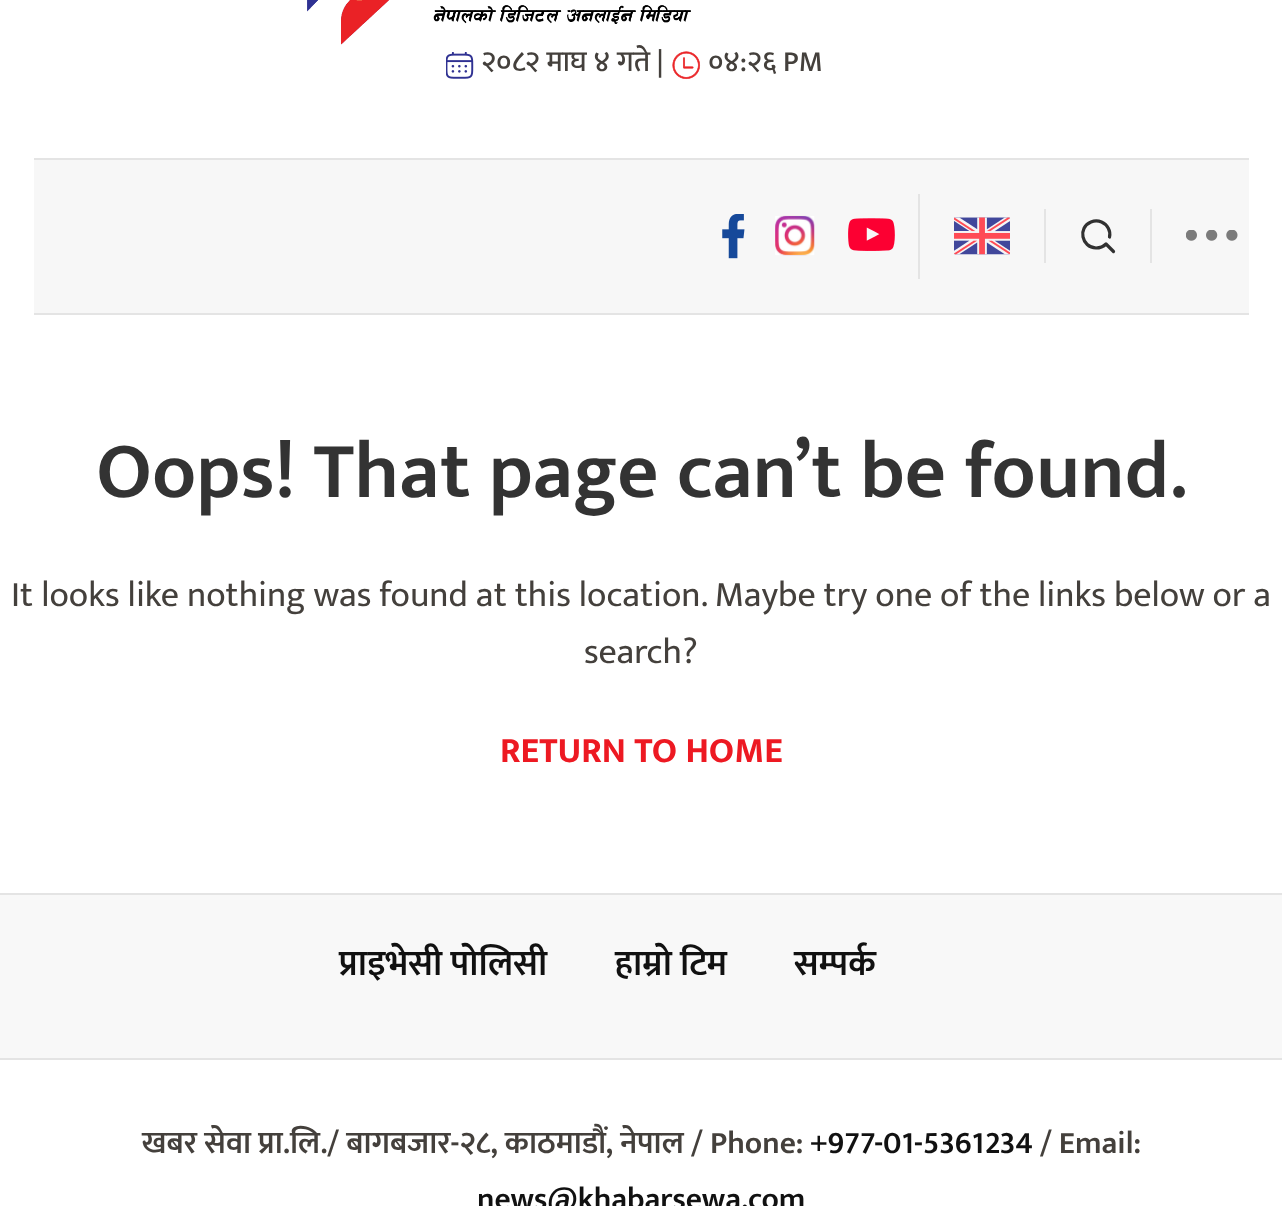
<!DOCTYPE html>
<meta charset="utf-8">
<style>body { margin: 0 } canvas { display: block }</style>
<canvas id="canvas" width="1282" height="1206"></canvas>
<script type="module">
  const canvas = document.getElementById("canvas");
  const ctx = canvas.getContext("2d");
  ctx.miterLimit = 4;
  ctx.fontKerning = "normal";
  async function loadImage(src) {
    const img = new Image();
    img.src = src;
    await img.decode();
    return img;
  }

  ctx.fillStyle = "#ffffff";
  ctx.fillRect(0, 0, 1282, 1206);
  ctx.drawImage(await loadImage("img1.png"), 307, 0, 384, 45);
  ctx.drawImage(await loadImage("img2.png"), 446, 52, 28, 27);
  ctx.font = "500 29.25px Mukta";
  ctx.fillStyle = "#44403c";
  ctx.fillText("२०८२ माघ ४ गते |", 481, 71);
  ctx.drawImage(await loadImage("img3.png"), 672, 51, 29, 29);
  ctx.fillText("०४:२६ PM", 708, 71);
  ctx.fillStyle = "#f7f7f7";
  ctx.fillRect(34, 160, 1215, 153);
  ctx.fillStyle = "#e4e4e4";
  ctx.fillRect(34, 158, 1215, 2);
  ctx.fillRect(34, 313, 1215, 2);
  ctx.drawImage(await loadImage("img4.png"), 722, 214, 23, 45);
  ctx.drawImage(await loadImage("img5.png"), 775, 215, 40, 41);
  ctx.drawImage(await loadImage("img6.png"), 848, 218, 47, 33);
  ctx.fillRect(918, 194, 2, 85);
  ctx.drawImage(await loadImage("img7.png"), 954, 217, 56, 38);
  ctx.fillRect(1044, 209, 2, 54);
  ctx.beginPath();
  ctx.moveTo(1113.5, 251.5);
  ctx.lineTo(1106, 244);
  ctx.bezierCurveTo(1103.5, 246.5, 1099.5, 248, 1096, 248);
  ctx.bezierCurveTo(1081.5, 247.5, 1077.5, 227.5, 1091, 222);
  ctx.bezierCurveTo(1094.5, 220.5, 1098, 220.5, 1101.5, 222);
  ctx.bezierCurveTo(1107.5, 224.5, 1111, 231, 1109.5, 237);
  ctx.strokeStyle = "#313131";
  ctx.lineWidth = 3.2;
  ctx.lineCap = "round";
  ctx.lineJoin = "round";
  ctx.stroke();
  ctx.fillRect(1150, 209, 2, 54);
  ctx.drawImage(await loadImage("img8.png"), 1186, 230, 52, 11);
  ctx.font = "600 80.3px Mukta";
  ctx.fillStyle = "#333333";
  ctx.fillText("Oops! That page can’t be found.", 96, 497);
  ctx.font = "36px Mukta";
  ctx.fillStyle = "#44403c";
  ctx.fillText("It looks like nothing was found at this location. Maybe try one of the links below or a", 11, 606);
  ctx.fillText("search?", 584, 663);
  ctx.font = "bold 36px Mukta";
  ctx.fillStyle = "#ed1922";
  ctx.fillText("RETURN TO HOME", 500, 762);
  ctx.fillStyle = "#f8f8f8";
  ctx.fillRect(0, 895, 1282, 163);
  ctx.fillStyle = "#e4e4e4";
  ctx.fillRect(0, 893, 1282, 2);
  ctx.fillRect(0, 1058, 1282, 2);
  ctx.font = "600 36px Mukta";
  ctx.fillStyle = "#111111";
  ctx.fillText("प्राइभेसी पोलिसी", 339, 975);
  ctx.fillText("हाम्रो टिम", 615, 975);
  ctx.fillText("सम्पर्क", 794, 975);
  ctx.font = "600 31.5px Mukta";
  ctx.fillStyle = "#44403c";
  ctx.fillText("खबर सेवा प्रा.लि./ बागबजार-२८, काठमाडौं, नेपाल / Phone:", 142, 1153);
  ctx.fillStyle = "#111111";
  ctx.fillText("+977-01-5361234", 810, 1153);
  ctx.fillStyle = "#44403c";
  ctx.fillText("/ Email:", 1040, 1153);
  ctx.fillStyle = "#111111";
  ctx.fillText("news@khabarsewa.com", 477, 1209);
</script>
